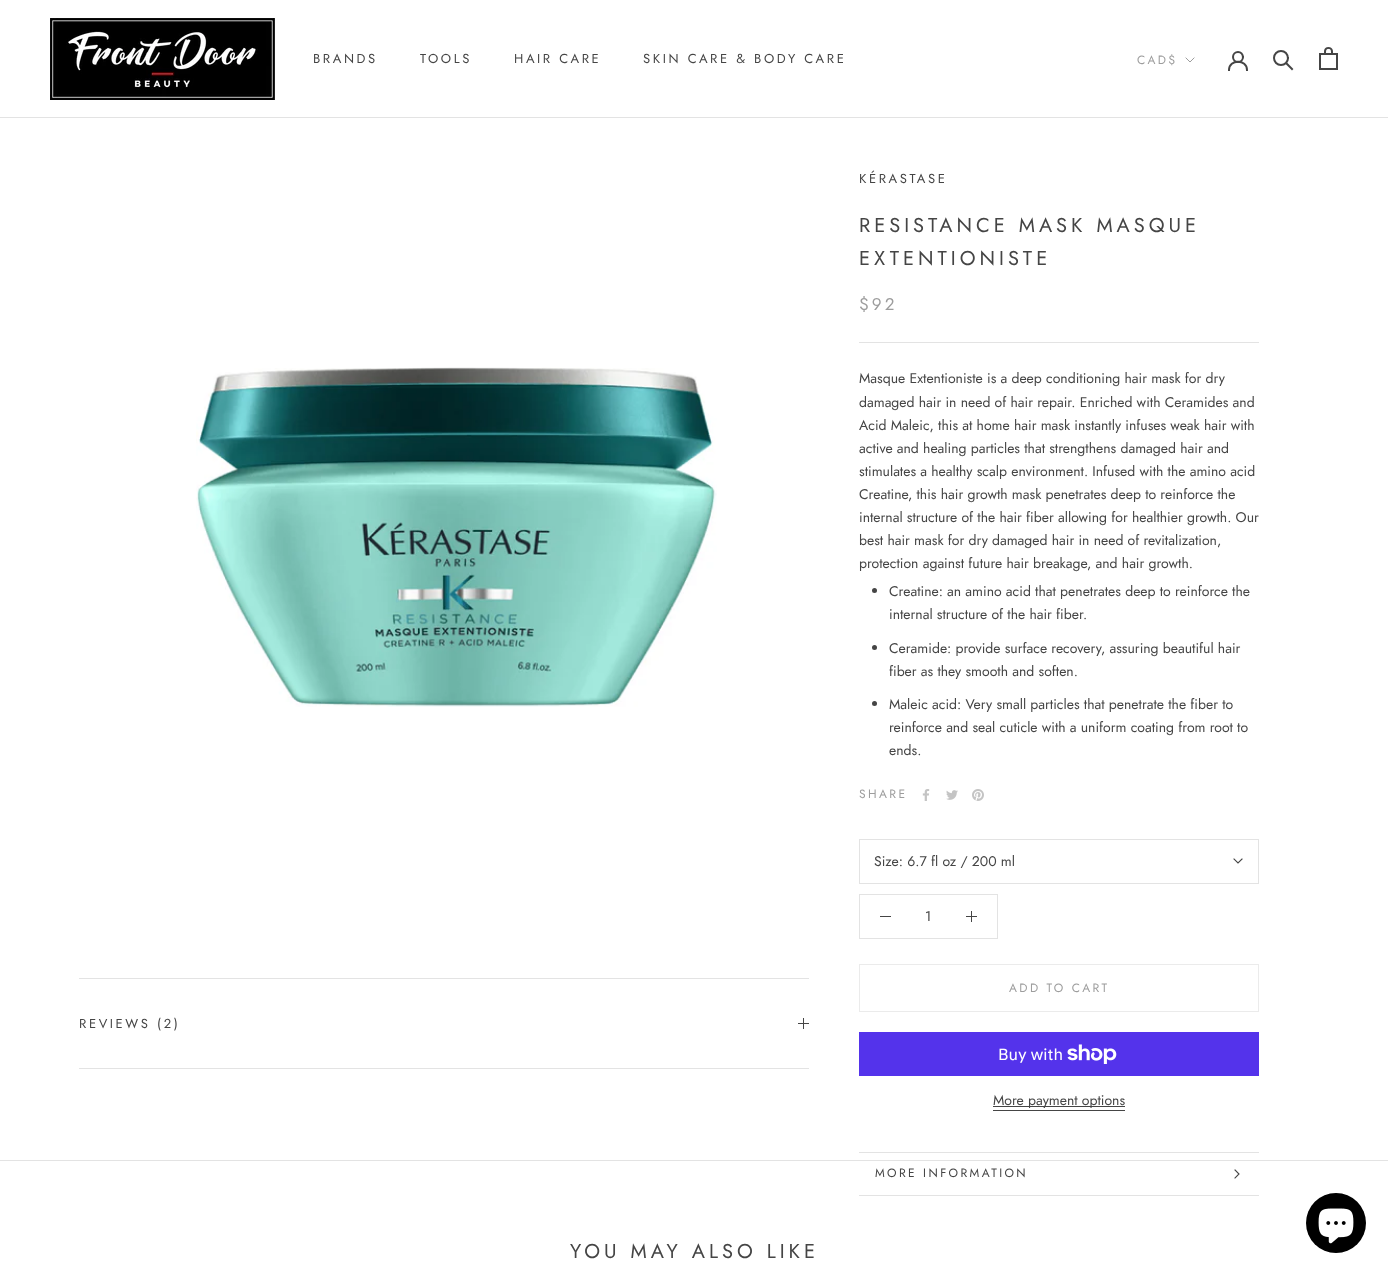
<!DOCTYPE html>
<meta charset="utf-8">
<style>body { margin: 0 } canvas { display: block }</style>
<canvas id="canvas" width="1388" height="1274"></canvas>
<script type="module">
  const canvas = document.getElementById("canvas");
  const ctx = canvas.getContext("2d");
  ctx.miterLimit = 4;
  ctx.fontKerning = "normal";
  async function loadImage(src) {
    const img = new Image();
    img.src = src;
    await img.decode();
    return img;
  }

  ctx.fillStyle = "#ffffff";
  ctx.fillRect(0, 0, 1388, 1274);
  ctx.fillStyle = "#e3e3e3";
  ctx.fillRect(0, 117, 1388, 1);
  ctx.drawImage(await loadImage("img1.png"), 50, 18, 225, 82);
  ctx.letterSpacing = "2.6px";
  ctx.font = "13px Jost";
  ctx.fillStyle = "#454545";
  ctx.fillText("BRANDS", 313, 63);
  ctx.fillText("TOOLS", 420, 63);
  ctx.fillText("HAIR CARE", 514, 63);
  ctx.fillText("SKIN CARE & BODY CARE", 643, 63);
  ctx.letterSpacing = "2.4px";
  ctx.font = "12px Jost";
  ctx.fillStyle = "#9d9d9d";
  ctx.fillText("CAD$", 1137, 64);
  ctx.beginPath();
  ctx.moveTo(1194, 58);
  ctx.lineTo(1190, 62);
  ctx.lineTo(1186, 58);
  ctx.strokeStyle = "#9d9d9d";
  ctx.lineCap = "square";
  ctx.stroke();
  ctx.beginPath();
  ctx.moveTo(1229, 70);
  ctx.bezierCurveTo(1229, 59, 1247, 59, 1247, 70);
  ctx.strokeStyle = "#454545";
  ctx.lineWidth = 2;
  ctx.stroke();
  ctx.beginPath();
  ctx.arc(1238, 57, 5, 0, Math.PI * 2);
  ctx.stroke();
  ctx.beginPath();
  ctx.moveTo(1292, 69);
  ctx.lineTo(1286.5, 63.5);
  ctx.stroke();
  ctx.beginPath();
  ctx.arc(1281, 58, 7, 0, Math.PI * 2);
  ctx.stroke();
  ctx.drawImage(await loadImage("img2.png"), 1319, 47, 19, 23);
  ctx.drawImage(await loadImage("img3.png"), 196, 367, 521, 340);
  ctx.letterSpacing = "2.6px";
  ctx.font = "13px Jost";
  ctx.fillStyle = "#454545";
  ctx.fillText("KÉRASTASE", 859, 183);
  ctx.letterSpacing = "4px";
  ctx.font = "20px Jost";
  ctx.fillText("RESISTANCE MASK MASQUE", 859, 232);
  ctx.fillText("EXTENTIONISTE", 859, 265);
  ctx.letterSpacing = "3px";
  ctx.font = "17px Jost";
  ctx.fillStyle = "#9d9d9d";
  ctx.fillText("$92", 859, 310);
  ctx.fillStyle = "#e3e3e3";
  ctx.fillRect(859, 342, 400, 1);
  ctx.letterSpacing = "0px";
  ctx.font = "14px Jost";
  ctx.fillStyle = "#454545";
  ctx.fillText("Masque Extentioniste is a deep conditioning hair mask for dry", 859, 383);
  ctx.fillText("damaged hair in need of hair repair. Enriched with Ceramides and", 859, 407);
  ctx.fillText("Acid Maleic, this at home hair mask instantly infuses weak hair with", 859, 430);
  ctx.fillText("active and healing particles that strengthens damaged hair and", 859, 453);
  ctx.fillText("stimulates a healthy scalp environment. Infused with the amino acid", 859, 476);
  ctx.fillText("Creatine, this hair growth mask penetrates deep to reinforce the", 859, 499);
  ctx.fillText("internal structure of the hair fiber allowing for healthier growth. Our", 859, 522);
  ctx.fillText("best hair mask for dry damaged hair in need of revitalization,", 859, 545);
  ctx.fillText("protection against future hair breakage, and hair growth.", 859, 568);
  ctx.beginPath();
  ctx.arc(874.5, 590.5, 2.5, 0, Math.PI * 2);
  ctx.fill();
  ctx.fillText("Creatine: an amino acid that penetrates deep to reinforce the", 889, 596);
  ctx.fillText("internal structure of the hair fiber.", 889, 619);
  ctx.beginPath();
  ctx.arc(874.5, 647.5, 2.5, 0, Math.PI * 2);
  ctx.fill();
  ctx.fillText("Ceramide: provide surface recovery, assuring beautiful hair", 889, 653);
  ctx.fillText("fiber as they smooth and soften.", 889, 676);
  ctx.beginPath();
  ctx.arc(874.5, 703.5, 2.5, 0, Math.PI * 2);
  ctx.fill();
  ctx.fillText("Maleic acid: Very small particles that penetrate the fiber to", 889, 709);
  ctx.fillText("reinforce and seal cuticle with a uniform coating from root to", 889, 732);
  ctx.fillText("ends.", 889, 755);
  ctx.letterSpacing = "2.4px";
  ctx.font = "12px Jost";
  ctx.fillStyle = "#9d9d9d";
  ctx.fillText("SHARE", 859, 798);
  ctx.drawImage(await loadImage("img4.png"), 922, 789, 8, 12);
  ctx.drawImage(await loadImage("img5.png"), 946, 790, 12, 10);
  ctx.drawImage(await loadImage("img6.png"), 972, 789, 12, 12);
  ctx.strokeStyle = "#e3e3e3";
  ctx.lineWidth = 1;
  ctx.strokeRect(859.5, 839.5, 399, 44);
  ctx.letterSpacing = "0px";
  ctx.font = "14px Jost";
  ctx.fillStyle = "#454545";
  ctx.fillText("Size: 6.7 fl oz / 200 ml", 874, 866);
  ctx.beginPath();
  ctx.moveTo(1242, 859);
  ctx.lineTo(1238, 863);
  ctx.lineTo(1234, 859);
  ctx.strokeStyle = "#454545";
  ctx.lineWidth = 1.1;
  ctx.stroke();
  ctx.strokeStyle = "#e3e3e3";
  ctx.lineWidth = 1;
  ctx.strokeRect(859.5, 894.5, 138, 44);
  ctx.fillRect(880, 916, 11, 1);
  ctx.fillText("1", 925, 921);
  ctx.fillRect(971, 911, 1, 11);
  ctx.fillRect(966, 916, 11, 1);
  ctx.strokeStyle = "#ebebeb";
  ctx.strokeRect(859.5, 964.5, 399, 47);
  ctx.letterSpacing = "2.4px";
  ctx.font = "12px Jost";
  ctx.fillStyle = "#9d9d9d";
  ctx.fillText("ADD TO CART", 1009, 992);
  ctx.fillStyle = "#5433eb";
  ctx.fillRect(859, 1032, 400, 44);
  ctx.letterSpacing = "0px";
  ctx.font = "16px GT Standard";
  ctx.fillStyle = "#ffffff";
  ctx.fillText("Buy with", 998, 1060);
  ctx.drawImage(await loadImage("img7.png"), 1067, 1044, 50, 20);
  ctx.fillStyle = "#454545";
  ctx.fillRect(993, 1106, 132, 1);
  ctx.font = "14px Jost";
  ctx.fillText("More payment options", 993, 1105);
  ctx.fillRect(993, 1110, 132, 1);
  ctx.fillStyle = "#e3e3e3";
  ctx.fillRect(859, 1152, 400, 1);
  ctx.fillRect(859, 1195, 400, 1);
  ctx.letterSpacing = "2.4px";
  ctx.font = "12px Jost";
  ctx.fillStyle = "#454545";
  ctx.fillText("MORE INFORMATION", 875, 1177);
  ctx.beginPath();
  ctx.moveTo(1235, 1170);
  ctx.lineTo(1239, 1174);
  ctx.lineTo(1235, 1178);
  ctx.strokeStyle = "#454545";
  ctx.lineWidth = 1.1;
  ctx.stroke();
  ctx.fillStyle = "#e3e3e3";
  ctx.fillRect(79, 978, 730, 1);
  ctx.fillRect(79, 1068, 730, 1);
  ctx.letterSpacing = "2.6px";
  ctx.font = "13px Jost";
  ctx.fillStyle = "#454545";
  ctx.fillText("REVIEWS (2)", 79, 1028);
  ctx.fillRect(803, 1018, 1, 11);
  ctx.fillRect(798, 1023, 11, 1);
  ctx.fillStyle = "#e3e3e3";
  ctx.fillRect(0, 1160, 1388, 1);
  ctx.letterSpacing = "4px";
  ctx.font = "20px Jost";
  ctx.fillStyle = "#454545";
  ctx.fillText("YOU MAY ALSO LIKE", 570, 1258);
  ctx.fillStyle = "#000000";
  ctx.beginPath();
  ctx.arc(1336, 1223, 30, 0, Math.PI * 2);
  ctx.fill();
  ctx.drawImage(await loadImage("img8.png"), 1318, 1208, 36, 36);
</script>
